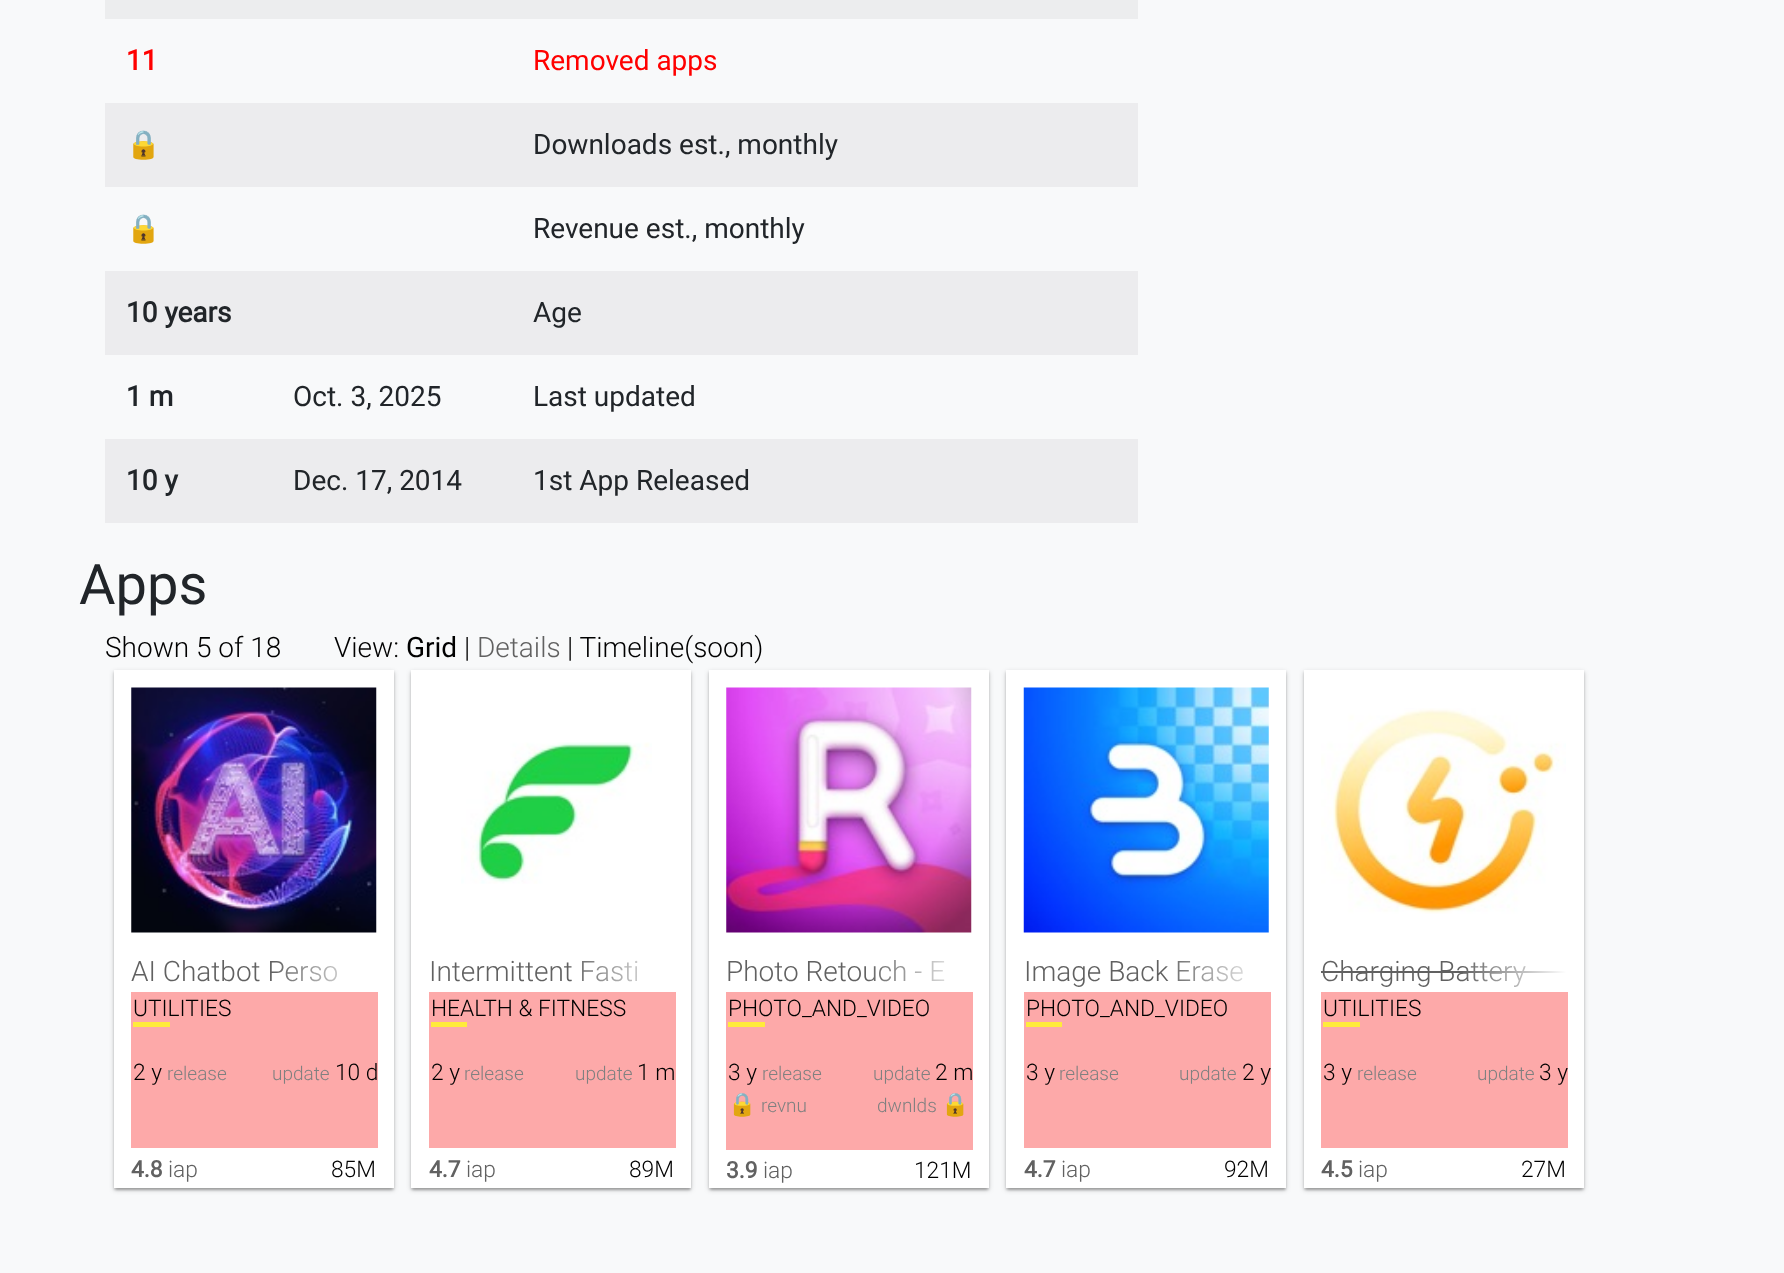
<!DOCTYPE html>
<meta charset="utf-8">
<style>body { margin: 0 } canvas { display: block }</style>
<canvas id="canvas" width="1784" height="1273"></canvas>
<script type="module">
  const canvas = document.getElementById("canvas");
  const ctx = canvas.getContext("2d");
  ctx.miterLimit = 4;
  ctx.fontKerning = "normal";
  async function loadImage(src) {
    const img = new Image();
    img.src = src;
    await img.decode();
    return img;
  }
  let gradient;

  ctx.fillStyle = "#f8f9fa";
  ctx.fillRect(0, 0, 1784, 1273);
  ctx.fillStyle = "#ecedee";
  ctx.fillRect(105, 0, 1033, 19);
  ctx.font = "bold 28px Roboto";
  ctx.fillStyle = "#ff0000";
  ctx.fillText("11", 126, 70);
  ctx.font = "28px Roboto";
  ctx.fillText("Removed apps", 533, 70);
  ctx.fillStyle = "#ececee";
  ctx.fillRect(105, 103, 1033, 84);
  ctx.font = "bold 28px Noto Color Emoji";
  ctx.fillStyle = "#212529";
  ctx.fillText("🔒", 126, 154);
  ctx.font = "28px Roboto";
  ctx.fillText("Downloads est., monthly", 533, 154);
  ctx.font = "bold 28px Noto Color Emoji";
  ctx.fillText("🔒", 126, 238);
  ctx.font = "28px Roboto";
  ctx.fillText("Revenue est., monthly", 533, 238);
  ctx.fillStyle = "#ececee";
  ctx.fillRect(105, 271, 1033, 84);
  ctx.font = "bold 28px Roboto";
  ctx.fillStyle = "#212529";
  ctx.fillText("10 years", 126, 322);
  ctx.font = "28px Roboto";
  ctx.fillText("Age", 533, 322);
  ctx.font = "bold 28px Roboto";
  ctx.fillText("1 m", 126, 406);
  ctx.font = "28px Roboto";
  ctx.fillText("Oct. 3, 2025", 293, 406);
  ctx.fillText("Last updated", 533, 406);
  ctx.fillStyle = "#ececee";
  ctx.fillRect(105, 439, 1033, 84);
  ctx.font = "bold 28px Roboto";
  ctx.fillStyle = "#212529";
  ctx.fillText("10 y", 126, 490);
  ctx.font = "28px Roboto";
  ctx.fillText("Dec. 17, 2014", 293, 490);
  ctx.fillText("1st App Released", 533, 490);
  ctx.font = "56px Roboto";
  ctx.fillText("Apps", 79, 604);
  ctx.font = "300 28px Roboto";
  ctx.fillStyle = "#000000";
  ctx.fillText("Shown 5 of 18", 105, 657);
  ctx.fillText("View:", 334, 657);
  ctx.font = "28px Roboto";
  ctx.fillText("Grid", 406, 657);
  ctx.font = "300 28px Roboto";
  ctx.fillText("|", 464, 657);
  ctx.fillStyle = "#616161";
  ctx.fillText("Details", 477, 657);
  ctx.fillStyle = "#000000";
  ctx.fillText("| Timeline(soon)", 567, 657);
  ctx.fillStyle = "rgba(0, 0, 0, 0.2)";
  ctx.filter = "blur(2.5px)";
  ctx.beginPath();
  ctx.rect(114, 672, 280, 518);
  ctx.fill();
  ctx.filter = "none";
  ctx.fillStyle = "rgba(0, 0, 0, 0.12)";
  ctx.filter = "blur(1px)";
  ctx.beginPath();
  ctx.rect(116, 676, 276, 514);
  ctx.fill();
  ctx.filter = "none";
  ctx.fillStyle = "rgba(0, 0, 0, 0.14)";
  ctx.filter = "blur(1px)";
  ctx.beginPath();
  ctx.rect(114, 672, 280, 518);
  ctx.fill();
  ctx.filter = "none";
  ctx.fillStyle = "#ffffff";
  ctx.fillRect(114, 670, 280, 518);
  ctx.drawImage(await loadImage("img1.png"), 131, 687, 246, 246);
  ctx.fillStyle = "#616161";
  ctx.fillText("AI Chatbot Perso", 131, 981);
  gradient = ctx.createLinearGradient(271, 971, 376, 971);
  gradient.addColorStop(0, "rgba(255, 255, 255, 0)");
  gradient.addColorStop(1, "#ffffff");
  ctx.fillStyle = gradient;
  ctx.fillRect(273, 961, 65, 21);
  ctx.fillStyle = "#fda9a9";
  ctx.fillRect(131, 992, 247, 156);
  ctx.font = "300 22.75px Roboto";
  ctx.fillStyle = "#000000";
  ctx.fillText("UTILITIES", 133, 1016);
  ctx.fillStyle = "#ffeb3b";
  ctx.fillRect(133, 1022, 37, 5);
  ctx.fillStyle = "#000000";
  ctx.fillText("2 y", 133, 1080);
  ctx.font = "300 19px Roboto";
  ctx.fillStyle = "#808080";
  ctx.fillText("release", 167, 1080);
  ctx.fillText("update", 272, 1080);
  ctx.font = "300 22.75px Roboto";
  ctx.fillStyle = "#000000";
  ctx.fillText("10 d", 335, 1080);
  ctx.font = "bold 22.75px Roboto";
  ctx.fillStyle = "#616161";
  ctx.fillText("4.8", 131, 1177);
  ctx.font = "300 22.75px Roboto";
  ctx.fillText("iap", 168, 1177);
  ctx.fillStyle = "#000000";
  ctx.fillText("85M", 331, 1177);
  ctx.fillStyle = "rgba(0, 0, 0, 0.2)";
  ctx.filter = "blur(2.5px)";
  ctx.beginPath();
  ctx.rect(411, 672, 280, 518);
  ctx.fill();
  ctx.filter = "none";
  ctx.fillStyle = "rgba(0, 0, 0, 0.12)";
  ctx.filter = "blur(1px)";
  ctx.beginPath();
  ctx.rect(413, 676, 277, 514);
  ctx.fill();
  ctx.filter = "none";
  ctx.fillStyle = "rgba(0, 0, 0, 0.14)";
  ctx.filter = "blur(1px)";
  ctx.beginPath();
  ctx.rect(411, 672, 280, 518);
  ctx.fill();
  ctx.filter = "none";
  ctx.fillStyle = "#ffffff";
  ctx.fillRect(411, 670, 280, 518);
  ctx.drawImage(await loadImage("img2.png"), 461, 742, 191, 142);
  ctx.font = "300 28px Roboto";
  ctx.fillStyle = "#616161";
  ctx.fillText("Intermittent Fasti", 429, 981);
  gradient = ctx.createLinearGradient(569, 971, 674, 971);
  gradient.addColorStop(0, "rgba(255, 255, 255, 0)");
  gradient.addColorStop(1, "#ffffff");
  ctx.fillStyle = gradient;
  ctx.fillRect(582, 960, 56, 22);
  ctx.fillStyle = "#fda9a9";
  ctx.fillRect(429, 992, 247, 156);
  ctx.font = "300 22.75px Roboto";
  ctx.fillStyle = "#000000";
  ctx.fillText("HEALTH & FITNESS", 431, 1016);
  ctx.fillStyle = "#ffeb3b";
  ctx.fillRect(431, 1022, 36, 5);
  ctx.fillStyle = "#000000";
  ctx.fillText("2 y", 431, 1080);
  ctx.font = "300 19px Roboto";
  ctx.fillStyle = "#808080";
  ctx.fillText("release", 464, 1080);
  ctx.fillText("update", 575, 1080);
  ctx.font = "300 22.75px Roboto";
  ctx.fillStyle = "#000000";
  ctx.fillText("1 m", 637, 1080);
  ctx.font = "bold 22.75px Roboto";
  ctx.fillStyle = "#616161";
  ctx.fillText("4.7", 429, 1177);
  ctx.font = "300 22.75px Roboto";
  ctx.fillText("iap", 466, 1177);
  ctx.fillStyle = "#000000";
  ctx.fillText("89M", 629, 1177);
  ctx.fillStyle = "rgba(0, 0, 0, 0.2)";
  ctx.filter = "blur(2.5px)";
  ctx.beginPath();
  ctx.rect(709, 672, 280, 518);
  ctx.fill();
  ctx.filter = "none";
  ctx.fillStyle = "rgba(0, 0, 0, 0.12)";
  ctx.filter = "blur(1px)";
  ctx.beginPath();
  ctx.rect(711, 676, 276, 514);
  ctx.fill();
  ctx.filter = "none";
  ctx.fillStyle = "rgba(0, 0, 0, 0.14)";
  ctx.filter = "blur(1px)";
  ctx.beginPath();
  ctx.rect(709, 672, 280, 518);
  ctx.fill();
  ctx.filter = "none";
  ctx.fillStyle = "#ffffff";
  ctx.fillRect(709, 670, 280, 518);
  ctx.drawImage(await loadImage("img3.png"), 726, 687, 246, 246);
  ctx.font = "300 28px Roboto";
  ctx.fillStyle = "#616161";
  ctx.fillText("Photo Retouch - E", 726, 981);
  gradient = ctx.createLinearGradient(866, 971, 971, 971);
  gradient.addColorStop(0, "rgba(255, 255, 255, 0)");
  gradient.addColorStop(1, "#ffffff");
  ctx.fillStyle = gradient;
  ctx.fillRect(868, 960, 77, 22);
  ctx.fillStyle = "#fda9a9";
  ctx.fillRect(726, 992, 247, 158);
  ctx.font = "300 22.75px Roboto";
  ctx.fillStyle = "#000000";
  ctx.fillText("PHOTO_AND_VIDEO", 728, 1016);
  ctx.fillStyle = "#ffeb3b";
  ctx.fillRect(728, 1022, 37, 5);
  ctx.fillStyle = "#000000";
  ctx.fillText("3 y", 728, 1080);
  ctx.font = "300 19px Roboto";
  ctx.fillStyle = "#808080";
  ctx.fillText("release", 762, 1080);
  ctx.fillText("update", 873, 1080);
  ctx.font = "300 22.75px Roboto";
  ctx.fillStyle = "#000000";
  ctx.fillText("2 m", 935, 1080);
  ctx.font = "22.75px Noto Color Emoji";
  ctx.fillStyle = "#616161";
  ctx.fillText("🔒", 728, 1112);
  ctx.font = "300 19px Roboto";
  ctx.fillStyle = "#808080";
  ctx.fillText("revnu", 761, 1112);
  ctx.fillText("dwnlds", 877, 1112);
  ctx.font = "22.75px Noto Color Emoji";
  ctx.fillStyle = "#616161";
  ctx.fillText("🔒", 941, 1112);
  ctx.font = "bold 22.75px Roboto";
  ctx.fillText("3.9", 726, 1178);
  ctx.font = "300 22.75px Roboto";
  ctx.fillText("iap", 763, 1178);
  ctx.fillStyle = "#000000";
  ctx.fillText("121M", 914, 1178);
  ctx.fillStyle = "rgba(0, 0, 0, 0.2)";
  ctx.filter = "blur(2.5px)";
  ctx.beginPath();
  ctx.rect(1006, 672, 280, 518);
  ctx.fill();
  ctx.filter = "none";
  ctx.fillStyle = "rgba(0, 0, 0, 0.12)";
  ctx.filter = "blur(1px)";
  ctx.beginPath();
  ctx.rect(1008, 676, 277, 514);
  ctx.fill();
  ctx.filter = "none";
  ctx.fillStyle = "rgba(0, 0, 0, 0.14)";
  ctx.filter = "blur(1px)";
  ctx.beginPath();
  ctx.rect(1006, 672, 280, 518);
  ctx.fill();
  ctx.filter = "none";
  ctx.fillStyle = "#ffffff";
  ctx.fillRect(1006, 670, 280, 518);
  ctx.drawImage(await loadImage("img4.png"), 1023, 687, 246, 246);
  ctx.font = "300 28px Roboto";
  ctx.fillStyle = "#616161";
  ctx.fillText("Image Back Erase", 1024, 981);
  gradient = ctx.createLinearGradient(1164, 971, 1269, 971);
  gradient.addColorStop(0, "rgba(255, 255, 255, 0)");
  gradient.addColorStop(1, "#ffffff");
  ctx.fillStyle = gradient;
  ctx.fillRect(1166, 961, 77, 21);
  ctx.fillStyle = "#fda9a9";
  ctx.fillRect(1024, 992, 247, 156);
  ctx.font = "300 22.75px Roboto";
  ctx.fillStyle = "#000000";
  ctx.fillText("PHOTO_AND_VIDEO", 1026, 1016);
  ctx.fillStyle = "#ffeb3b";
  ctx.fillRect(1026, 1022, 36, 5);
  ctx.fillStyle = "#000000";
  ctx.fillText("3 y", 1026, 1080);
  ctx.font = "300 19px Roboto";
  ctx.fillStyle = "#808080";
  ctx.fillText("release", 1059, 1080);
  ctx.fillText("update", 1179, 1080);
  ctx.font = "300 22.75px Roboto";
  ctx.fillStyle = "#000000";
  ctx.fillText("2 y", 1242, 1080);
  ctx.font = "bold 22.75px Roboto";
  ctx.fillStyle = "#616161";
  ctx.fillText("4.7", 1024, 1177);
  ctx.font = "300 22.75px Roboto";
  ctx.fillText("iap", 1061, 1177);
  ctx.fillStyle = "#000000";
  ctx.fillText("92M", 1224, 1177);
  ctx.fillStyle = "rgba(0, 0, 0, 0.2)";
  ctx.filter = "blur(2.5px)";
  ctx.beginPath();
  ctx.rect(1304, 672, 280, 518);
  ctx.fill();
  ctx.filter = "none";
  ctx.fillStyle = "rgba(0, 0, 0, 0.12)";
  ctx.filter = "blur(1px)";
  ctx.beginPath();
  ctx.rect(1306, 676, 276, 514);
  ctx.fill();
  ctx.filter = "none";
  ctx.fillStyle = "rgba(0, 0, 0, 0.14)";
  ctx.filter = "blur(1px)";
  ctx.beginPath();
  ctx.rect(1304, 672, 280, 518);
  ctx.fill();
  ctx.filter = "none";
  ctx.fillStyle = "#ffffff";
  ctx.fillRect(1304, 670, 280, 518);
  ctx.drawImage(await loadImage("img5.png"), 1321, 708, 245, 206);
  ctx.font = "300 28px Roboto";
  ctx.fillStyle = "#616161";
  ctx.fillText("Charging Battery", 1321, 981);
  ctx.fillRect(1321, 971, 245, 2);
  gradient = ctx.createLinearGradient(1461, 971, 1566, 971);
  gradient.addColorStop(0, "rgba(255, 255, 255, 0)");
  gradient.addColorStop(1, "#ffffff");
  ctx.fillStyle = gradient;
  ctx.fillRect(1463, 962, 103, 25);
  ctx.fillStyle = "#fda9a9";
  ctx.fillRect(1321, 992, 247, 156);
  ctx.font = "300 22.75px Roboto";
  ctx.fillStyle = "#000000";
  ctx.fillText("UTILITIES", 1323, 1016);
  ctx.fillStyle = "#ffeb3b";
  ctx.fillRect(1323, 1022, 37, 5);
  ctx.fillStyle = "#000000";
  ctx.fillText("3 y", 1323, 1080);
  ctx.font = "300 19px Roboto";
  ctx.fillStyle = "#808080";
  ctx.fillText("release", 1357, 1080);
  ctx.fillText("update", 1477, 1080);
  ctx.font = "300 22.75px Roboto";
  ctx.fillStyle = "#000000";
  ctx.fillText("3 y", 1539, 1080);
  ctx.font = "bold 22.75px Roboto";
  ctx.fillStyle = "#616161";
  ctx.fillText("4.5", 1321, 1177);
  ctx.font = "300 22.75px Roboto";
  ctx.fillText("iap", 1358, 1177);
  ctx.fillStyle = "#000000";
  ctx.fillText("27M", 1521, 1177);
</script>
